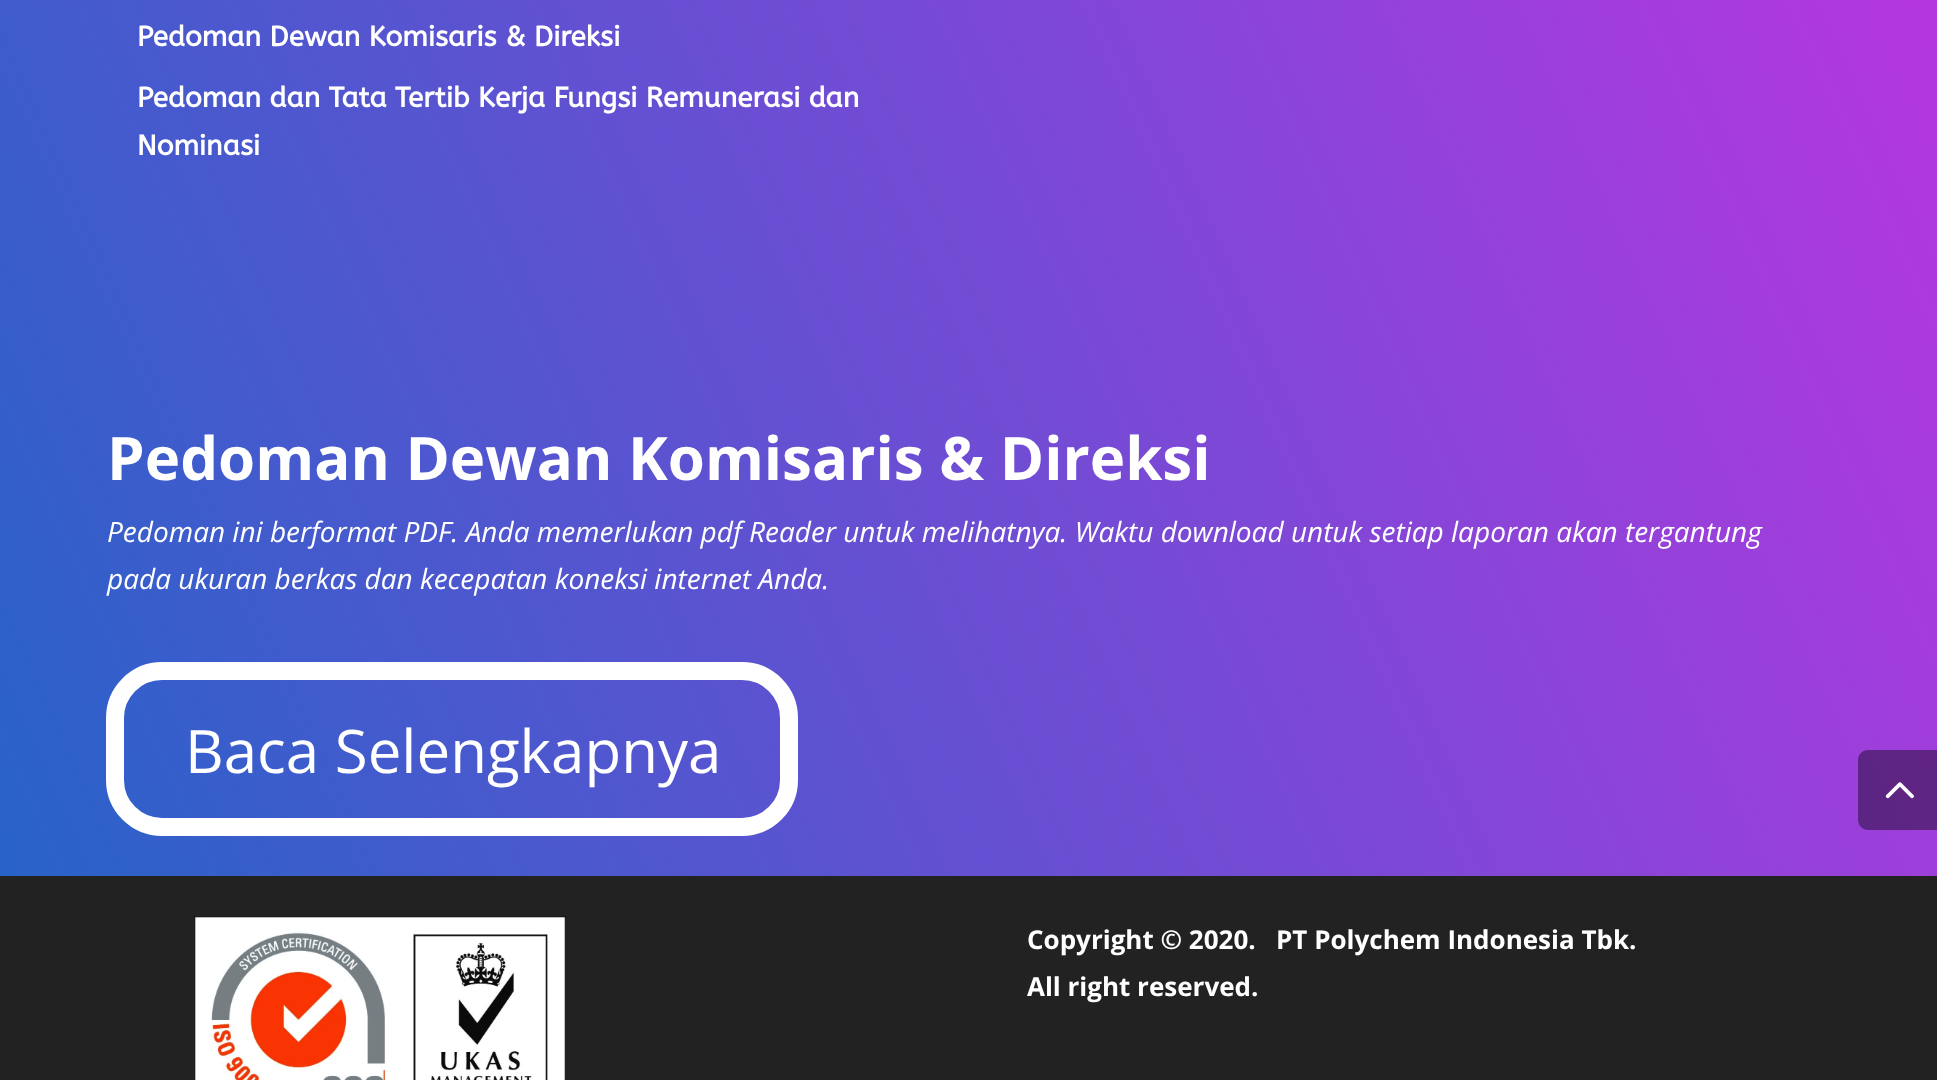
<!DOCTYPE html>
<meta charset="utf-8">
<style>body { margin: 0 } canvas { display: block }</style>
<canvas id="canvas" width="1937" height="1080"></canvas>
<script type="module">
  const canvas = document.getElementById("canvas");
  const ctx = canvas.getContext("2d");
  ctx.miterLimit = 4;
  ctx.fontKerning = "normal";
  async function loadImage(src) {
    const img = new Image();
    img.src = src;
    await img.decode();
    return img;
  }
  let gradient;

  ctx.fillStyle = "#222222";
  ctx.fillRect(0, 0, 1937, 1080);
  gradient = ctx.createLinearGradient(-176, 481, 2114, -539);
  gradient.addColorStop(0, "#2863c9");
  gradient.addColorStop(1, "#ce2fe2");
  ctx.fillStyle = gradient;
  ctx.fillRect(0, 0, 1937, 876);
  ctx.font = "bold 28px ABeeZee";
  ctx.fillStyle = "#ffffff";
  ctx.fillText("Pedoman Dewan Komisaris & Direksi", 137, 46);
  ctx.fillText("Pedoman dan Tata Tertib Kerja Fungsi Remunerasi dan", 137, 107);
  ctx.fillText("Nominasi", 137, 155);
  ctx.font = "bold 60px Open Sans";
  ctx.fillText("Pedoman Dewan Komisaris & Direksi", 107, 480);
  ctx.font = "italic 28px Open Sans";
  ctx.fillText("Pedoman ini berformat PDF. Anda memerlukan pdf Reader untuk melihatnya. Waktu download untuk setiap laporan akan tergantung", 107, 542);
  ctx.fillText("pada ukuran berkas dan kecepatan koneksi internet Anda.", 107, 589);
  ctx.beginPath();
  ctx.roundRect(115, 671, 674, 156, 47);
  ctx.strokeStyle = "#ffffff";
  ctx.lineWidth = 18;
  ctx.stroke();
  ctx.font = "60px Open Sans";
  ctx.fillText("Baca Selengkapnya", 185, 773);
  ctx.fillStyle = "rgba(0, 0, 0, 0.4)";
  ctx.beginPath();
  ctx.moveTo(1868, 750);
  ctx.lineTo(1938, 750);
  ctx.lineTo(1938, 830);
  ctx.lineTo(1868, 830);
  ctx.bezierCurveTo(1862.5, 830, 1858, 825.5, 1858, 820);
  ctx.lineTo(1858, 760);
  ctx.bezierCurveTo(1858, 754.5, 1862.5, 750, 1868, 750);
  ctx.closePath();
  ctx.fill();
  ctx.drawImage(await loadImage("img1.png"), 1885, 782, 29, 17);
  ctx.drawImage(await loadImage("img2.png"), 194, 916, 372, 164);
  ctx.font = "bold 26px Open Sans";
  ctx.fillStyle = "#ffffff";
  ctx.fillText("Copyright © 2020.   PT Polychem Indonesia Tbk.", 1027, 949);
  ctx.fillText("All right reserved.", 1027, 996);
</script>
